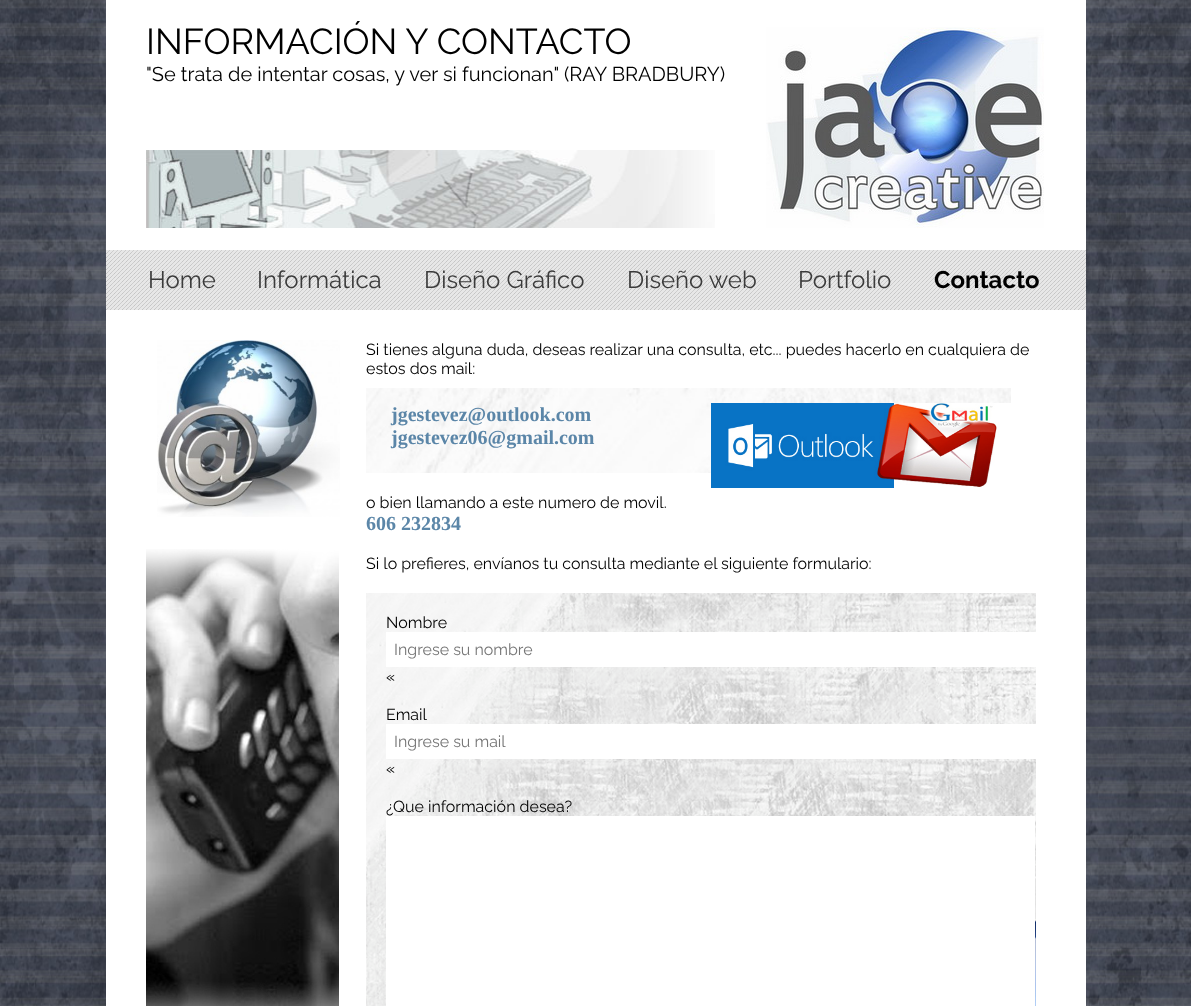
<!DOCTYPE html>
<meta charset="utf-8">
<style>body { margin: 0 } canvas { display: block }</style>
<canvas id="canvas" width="1191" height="1006"></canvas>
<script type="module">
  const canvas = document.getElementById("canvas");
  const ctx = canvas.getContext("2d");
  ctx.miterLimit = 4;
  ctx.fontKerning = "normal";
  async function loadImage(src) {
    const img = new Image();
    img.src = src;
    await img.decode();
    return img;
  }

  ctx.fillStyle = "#ffffff";
  ctx.fillRect(0, 0, 1191, 1006);
  ctx.drawImage(await loadImage("img1.png"), 0, 0, 1191, 1006);
  ctx.fillRect(106, 0, 980, 1006);
  ctx.font = "36px Raleway";
  ctx.fillStyle = "#000000";
  ctx.fillText("INFORMACIÓN Y CONTACTO", 146, 54);
  ctx.font = "20px Raleway";
  ctx.fillText("\"Se trata de intentar cosas, y ver si funcionan\" (RAY BRADBURY)", 146, 81);
  ctx.drawImage(await loadImage("img2.png"), 766, 27, 278, 201);
  ctx.drawImage(await loadImage("img3.png"), 146, 150, 569, 78);
  ctx.drawImage(await loadImage("img4.png"), 106, 250, 980, 60);
  ctx.font = "24px Raleway";
  ctx.fillStyle = "#3b3b3b";
  ctx.fillText("Home", 148, 288);
  ctx.fillText("Informática", 257, 288);
  ctx.fillText("Diseño Gráfico", 424, 288);
  ctx.fillText("Diseño web", 627, 288);
  ctx.fillText("Portfolio", 798, 288);
  ctx.font = "bold 24px Raleway";
  ctx.fillStyle = "#000000";
  ctx.fillText("Contacto", 934, 288);
  ctx.drawImage(await loadImage("img5.png"), 157, 340, 183, 177);
  ctx.drawImage(await loadImage("img6.png"), 146, 549, 193, 457);
  ctx.font = "16px Raleway";
  ctx.fillText("Si tienes alguna duda, deseas realizar una consulta, etc... puedes hacerlo en cualquiera de", 366, 355);
  ctx.fillText("estos dos mail:", 366, 374);
  ctx.drawImage(await loadImage("img7.png"), 366, 388, 645, 85);
  ctx.font = "bold 20px Liberation Serif";
  ctx.fillStyle = "#5b86a8";
  ctx.fillText("jgestevez@outlook.com", 391, 421);
  ctx.drawImage(await loadImage("img8.png"), 711, 403, 300, 85);
  ctx.fillText("jgestevez06@gmail.com", 391, 444);
  ctx.font = "16px Raleway";
  ctx.fillStyle = "#000000";
  ctx.fillText("o bien llamando a este numero de movil.", 366, 508);
  ctx.font = "bold 20px Liberation Serif";
  ctx.fillStyle = "#5b86a8";
  ctx.fillText("606 232834", 366, 530);
  ctx.font = "16px Raleway";
  ctx.fillStyle = "#000000";
  ctx.fillText("Si lo prefieres, envíanos tu consulta mediante el siguiente formulario:", 366, 569);
  ctx.drawImage(await loadImage("img9.png"), 366, 593, 670, 413);
  ctx.fillText("Nombre", 386, 628);
  ctx.fillStyle = "#ffffff";
  ctx.fillRect(386, 632, 650, 35);
  ctx.fillStyle = "#757575";
  ctx.fillText("Ingrese su nombre", 394, 655);
  ctx.fillStyle = "#000000";
  ctx.fillText("«", 386, 682);
  ctx.fillText("Email", 386, 720);
  ctx.fillStyle = "#ffffff";
  ctx.fillRect(386, 724, 650, 35);
  ctx.fillStyle = "#757575";
  ctx.fillText("Ingrese su mail", 394, 747);
  ctx.fillStyle = "#000000";
  ctx.fillText("«", 386, 774);
  ctx.fillText("¿Que información desea?", 386, 812);
  ctx.fillStyle = "#ffffff";
  ctx.fillRect(386, 816, 649, 190);
</script>
